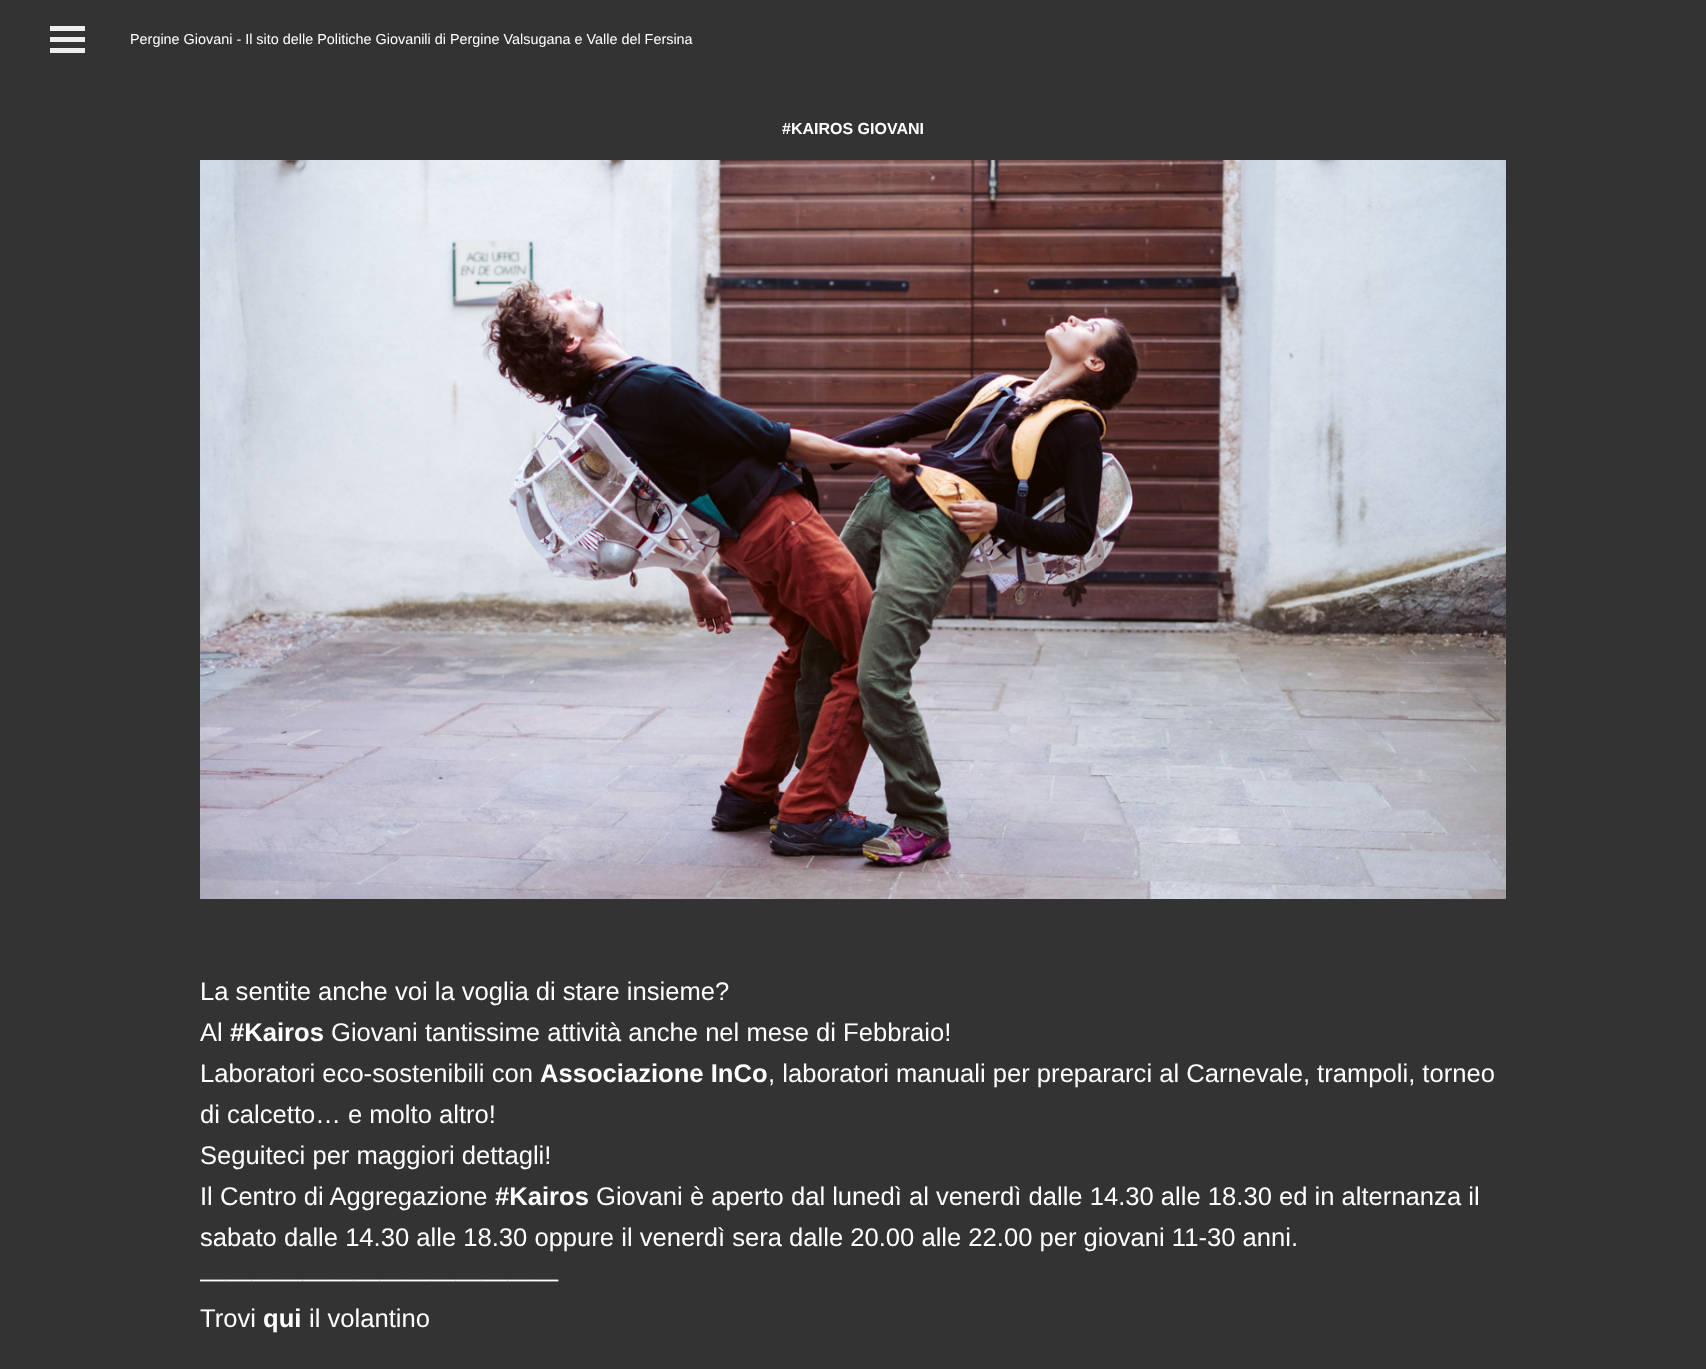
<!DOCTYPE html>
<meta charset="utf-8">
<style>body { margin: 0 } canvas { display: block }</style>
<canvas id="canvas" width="1706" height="1369"></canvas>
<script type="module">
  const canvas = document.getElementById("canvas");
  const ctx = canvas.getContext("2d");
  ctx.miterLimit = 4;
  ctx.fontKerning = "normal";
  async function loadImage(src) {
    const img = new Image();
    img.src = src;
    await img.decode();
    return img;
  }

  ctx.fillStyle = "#333333";
  ctx.fillRect(0, 0, 1706, 1369);
  ctx.fillStyle = "#eeeeee";
  ctx.fillRect(50, 26, 35, 5);
  ctx.fillRect(50, 37, 35, 5);
  ctx.fillRect(50, 48, 35, 5);
  ctx.font = "14.4px Liberation Sans";
  ctx.fillStyle = "#ffffff";
  ctx.fillText("Pergine Giovani - Il sito delle Politiche Giovanili di Pergine Valsugana e Valle del Fersina", 130, 44);
  ctx.font = "bold 16px Liberation Sans";
  ctx.fillText("#KAIROS GIOVANI", 782, 134);
  ctx.drawImage(await loadImage("img1.png"), 200, 160, 1306, 739);
  ctx.font = "25.6px Liberation Sans";
  ctx.fillText("La sentite anche voi la voglia di stare insieme?", 200, 1000);
  ctx.fillText("Al", 200, 1041);
  ctx.font = "bold 25.6px Liberation Sans";
  ctx.fillText("#Kairos", 230, 1041);
  ctx.font = "25.6px Liberation Sans";
  ctx.fillText("Giovani tantissime attività anche nel mese di Febbraio!", 331, 1041);
  ctx.fillText("Laboratori eco-sostenibili con", 200, 1082);
  ctx.font = "bold 25.6px Liberation Sans";
  ctx.fillText("Associazione InCo", 540, 1082);
  ctx.font = "25.6px Liberation Sans";
  ctx.fillText(", laboratori manuali per prepararci al Carnevale, trampoli, torneo", 768, 1082);
  ctx.fillText("di calcetto… e molto altro!", 200, 1123);
  ctx.fillText("Seguiteci per maggiori dettagli!", 200, 1164);
  ctx.fillText("Il Centro di Aggregazione", 200, 1205);
  ctx.font = "bold 25.6px Liberation Sans";
  ctx.fillText("#Kairos", 495, 1205);
  ctx.font = "25.6px Liberation Sans";
  ctx.fillText("Giovani è aperto dal lunedì al venerdì dalle 14.30 alle 18.30 ed in alternanza il", 596, 1205);
  ctx.fillText("sabato dalle 14.30 alle 18.30 oppure il venerdì sera dalle 20.00 alle 22.00 per giovani 11-30 anni.", 200, 1246);
  ctx.fillText("——————————————", 200, 1287);
  ctx.fillText("Trovi", 200, 1327);
  ctx.font = "bold 25.6px Liberation Sans";
  ctx.fillText("qui", 263, 1327);
  ctx.font = "25.6px Liberation Sans";
  ctx.fillText("il volantino", 309, 1327);
</script>
